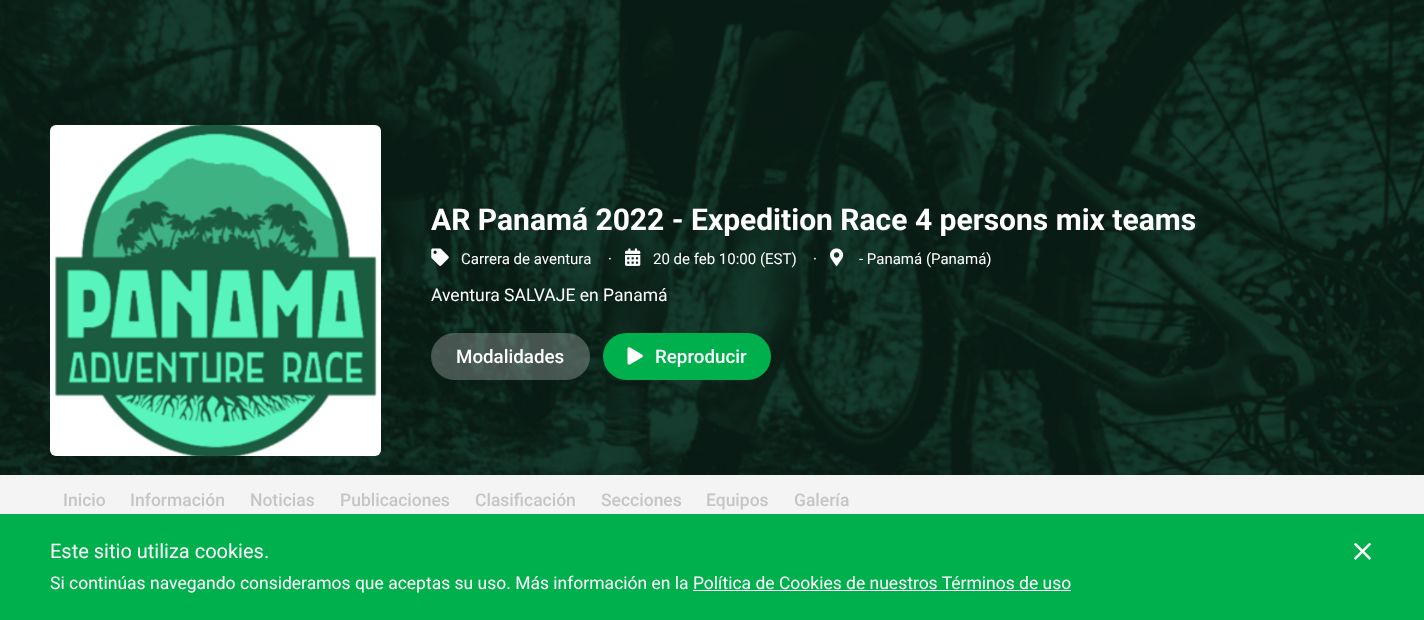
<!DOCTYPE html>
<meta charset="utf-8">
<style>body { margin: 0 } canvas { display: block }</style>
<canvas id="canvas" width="1424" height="620"></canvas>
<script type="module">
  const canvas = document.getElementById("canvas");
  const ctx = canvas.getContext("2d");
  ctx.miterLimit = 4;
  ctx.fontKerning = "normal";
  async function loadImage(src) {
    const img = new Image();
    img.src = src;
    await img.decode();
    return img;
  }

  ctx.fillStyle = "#f4f4f4";
  ctx.fillRect(0, 0, 1424, 620);
  ctx.drawImage(await loadImage("img1.png"), 0, 0, 1424, 475);
  ctx.fillStyle = "#ffffff";
  ctx.beginPath();
  ctx.roundRect(50, 125, 331, 331, 6);
  ctx.fill();
  ctx.drawImage(await loadImage("img2.png"), 55, 125, 322, 332);
  ctx.font = "bold 30px Roboto";
  ctx.fillText("AR Panamá 2022 - Expedition Race 4 persons mix teams", 431, 230);
  ctx.drawImage(await loadImage("img3.png"), 431, 248, 18, 18);
  ctx.font = "15px Roboto";
  ctx.fillText("Carrera de aventura", 461, 264);
  ctx.fillText("·", 608, 264);
  ctx.drawImage(await loadImage("img4.png"), 625, 248, 16, 18);
  ctx.fillText("20 de feb 10:00 (EST)", 653, 264);
  ctx.fillText("·", 813, 264);
  ctx.drawImage(await loadImage("img5.png"), 830, 248, 14, 18);
  ctx.fillText("- Panamá (Panamá)", 859, 264);
  ctx.font = "17.5px Roboto";
  ctx.fillText("Aventura SALVAJE en Panamá", 431, 301);
  ctx.fillStyle = "rgba(255, 255, 255, 0.25)";
  ctx.beginPath();
  ctx.roundRect(431, 333, 159, 47, 23.5);
  ctx.fill();
  ctx.font = "500 18.75px Roboto";
  ctx.fillStyle = "#ffffff";
  ctx.fillText("Modalidades", 456, 363);
  ctx.fillStyle = "#00b04c";
  ctx.beginPath();
  ctx.roundRect(603, 333, 168, 47, 23.5);
  ctx.fill();
  ctx.drawImage(await loadImage("img6.png"), 627, 347, 16, 18);
  ctx.fillStyle = "#ffffff";
  ctx.fillText("Reproducir", 655, 363);
  ctx.font = "500 17.5px Roboto";
  ctx.fillStyle = "#c5c5c5";
  ctx.fillText("Inicio", 63, 506);
  ctx.fillText("Información", 130, 506);
  ctx.fillText("Noticias", 250, 506);
  ctx.fillText("Publicaciones", 340, 506);
  ctx.fillText("Clasificación", 475, 506);
  ctx.fillText("Secciones", 601, 506);
  ctx.fillText("Equipos", 706, 506);
  ctx.fillText("Galería", 794, 506);
  ctx.fillStyle = "#00b04c";
  ctx.fillRect(0, 514, 1424, 106);
  ctx.font = "20px Roboto";
  ctx.fillStyle = "#ffffff";
  ctx.fillText("Este sitio utiliza cookies.", 50, 558);
  ctx.font = "17.5px Roboto";
  ctx.fillText("Si continúas navegando consideramos que aceptas su uso. Más información en la Política de Cookies de nuestros Términos de uso", 50, 589);
  ctx.fillRect(693, 590, 378, 1);
  ctx.drawImage(await loadImage("img7.png"), 1354, 543, 17, 17);
</script>
